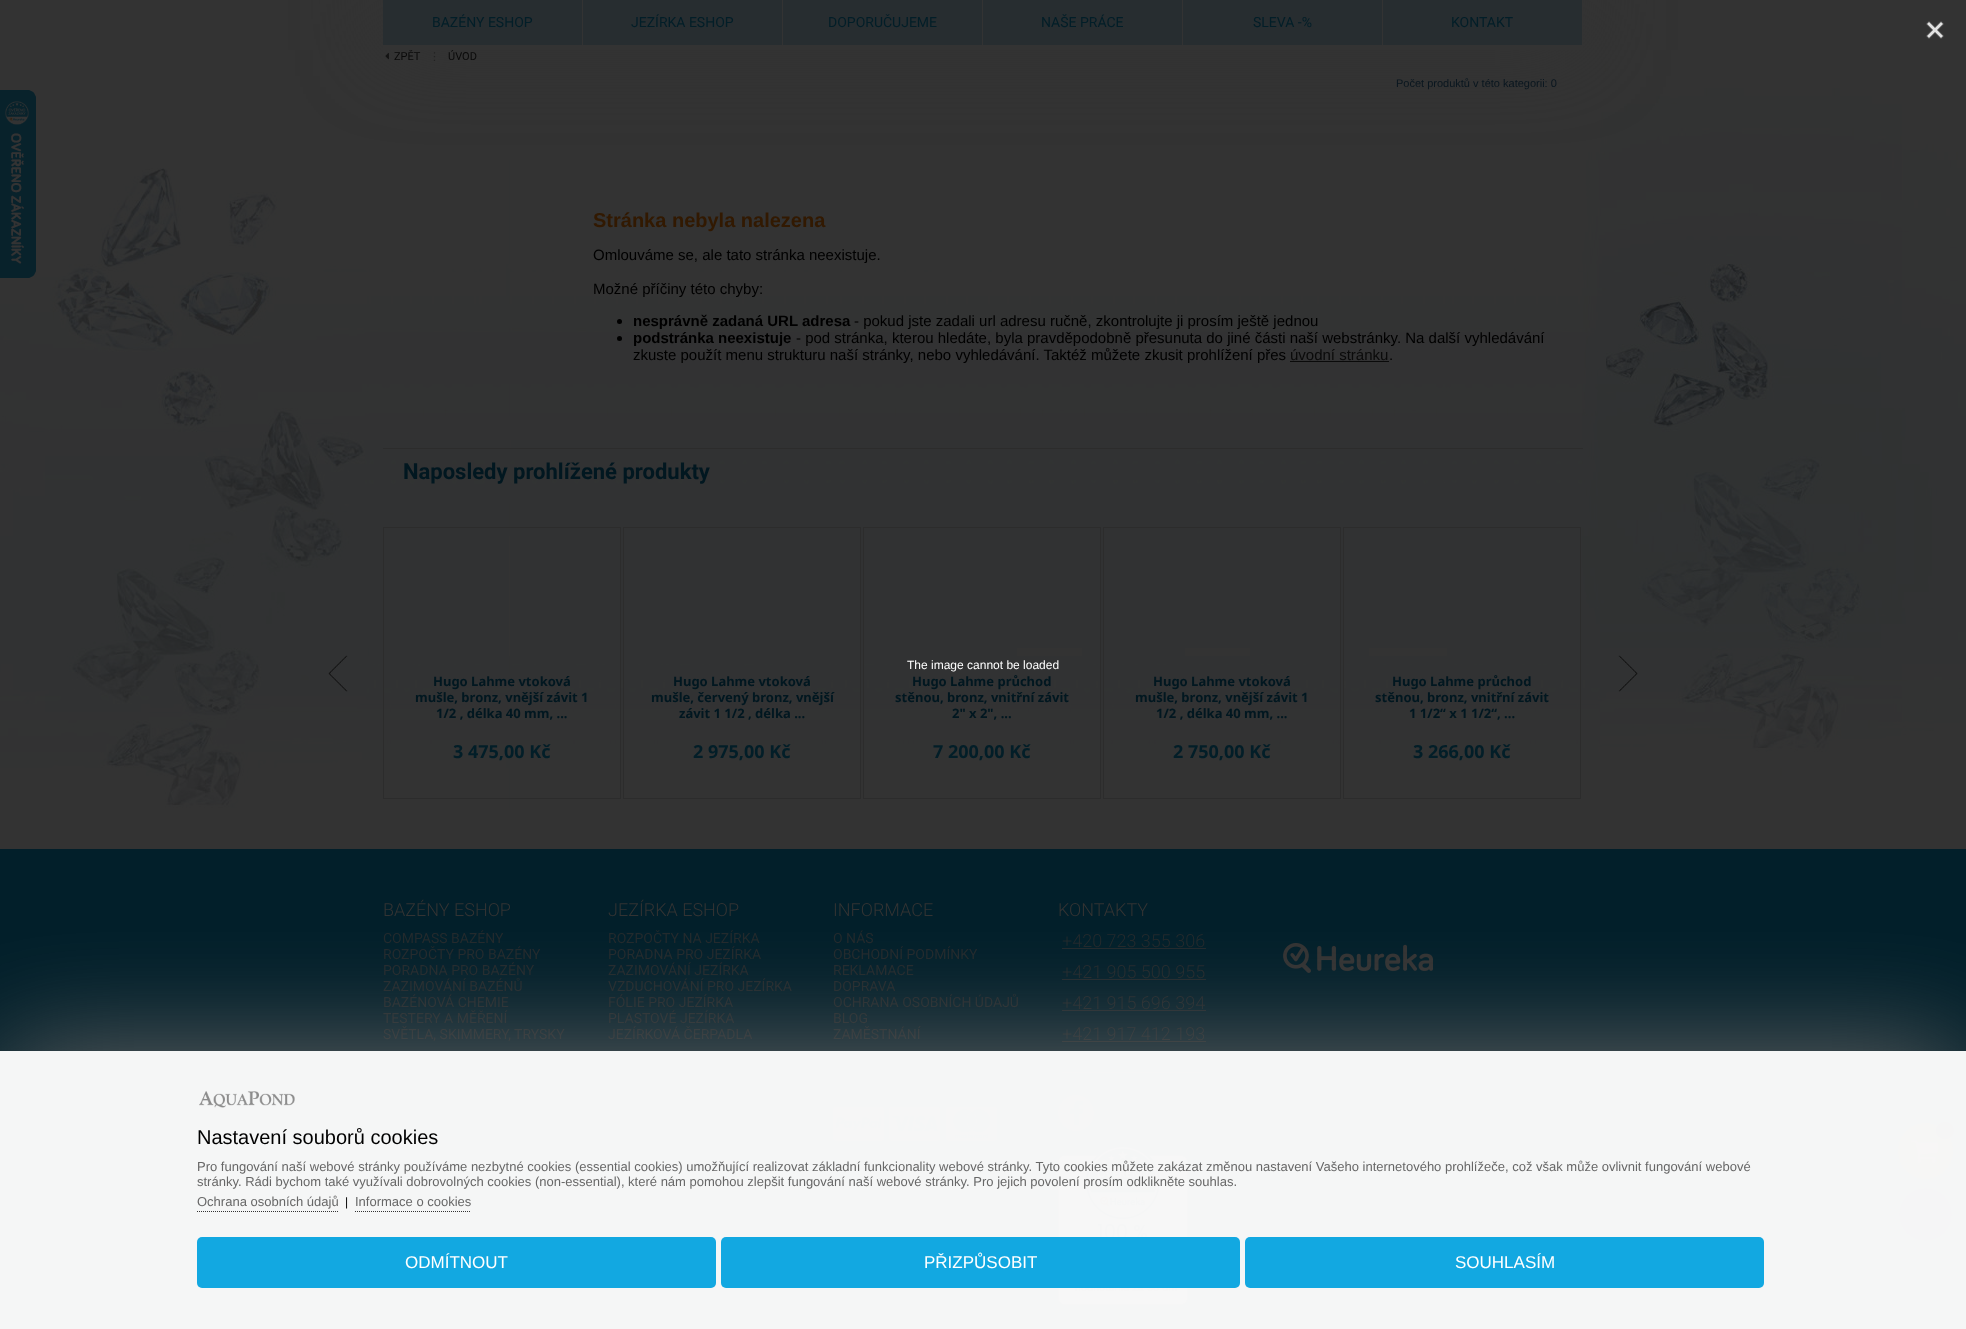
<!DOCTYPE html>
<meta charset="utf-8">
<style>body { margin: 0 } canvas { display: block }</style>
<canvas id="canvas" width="1966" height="1329"></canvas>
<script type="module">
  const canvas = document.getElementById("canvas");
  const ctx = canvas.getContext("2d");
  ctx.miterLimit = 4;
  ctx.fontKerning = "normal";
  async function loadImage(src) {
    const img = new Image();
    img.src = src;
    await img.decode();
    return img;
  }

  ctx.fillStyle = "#333333";
  ctx.fillRect(0, 0, 1966, 1329);
  ctx.drawImage(await loadImage("img1.png"), 0, 64, 1966, 744);
  ctx.drawImage(await loadImage("img2.png"), 385, 53, 4, 7);
  ctx.save();
  ctx.beginPath();
  ctx.moveTo(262, 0);
  ctx.lineTo(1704, 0);
  ctx.lineTo(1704, 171);
  ctx.lineTo(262, 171);
  ctx.closePath();
  ctx.moveTo(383, -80);
  ctx.lineTo(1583, -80);
  ctx.lineTo(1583, 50);
  ctx.lineTo(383, 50);
  ctx.closePath();
  ctx.clip("evenodd");
  ctx.filter = "blur(40px)";
  ctx.beginPath();
  ctx.rect(383, -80, 1200, 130);
  ctx.fill();
  ctx.filter = "none";
  ctx.restore();
  ctx.fillStyle = "#272d30";
  ctx.fillRect(383, 0, 199, 45);
  ctx.font = "14px Roboto";
  ctx.fillStyle = "#021e28";
  ctx.fillText("BAZÉNY ESHOP", 432, 27);
  ctx.fillStyle = "#272d30";
  ctx.fillRect(583, 0, 199, 45);
  ctx.fillStyle = "#021e28";
  ctx.fillText("JEZÍRKA ESHOP", 631, 27);
  ctx.fillStyle = "#272d30";
  ctx.fillRect(783, 0, 199, 45);
  ctx.fillStyle = "#021e28";
  ctx.fillText("DOPORUČUJEME", 828, 27);
  ctx.fillStyle = "#272d30";
  ctx.fillRect(983, 0, 199, 45);
  ctx.fillStyle = "#021e28";
  ctx.fillText("NAŠE PRÁCE", 1041, 27);
  ctx.fillStyle = "#272d30";
  ctx.fillRect(1183, 0, 199, 45);
  ctx.fillStyle = "#021e28";
  ctx.fillText("SLEVA -%", 1253, 27);
  ctx.fillStyle = "#272d30";
  ctx.fillRect(1383, 0, 199, 45);
  ctx.fillStyle = "#021e28";
  ctx.fillText("KONTAKT", 1451, 27);
  ctx.font = "11px Roboto";
  ctx.fillStyle = "#0a0a0a";
  ctx.fillText("ZPĚT", 394, 60);
  ctx.font = "11px DejaVu Sans";
  ctx.fillStyle = "#222222";
  ctx.fillText("⋮", 429, 60);
  ctx.font = "11px Roboto";
  ctx.fillStyle = "#0a0a0a";
  ctx.fillText("ÚVOD", 448, 60);
  ctx.drawImage(await loadImage("img3.png"), 0, 90, 36, 188);
  ctx.fillStyle = "#021f2a";
  ctx.fillRect(0, 849, 1966, 480);
  ctx.fillStyle = "#291b09";
  ctx.beginPath();
  ctx.roundRect(1898, 1123, 55, 56, 27.5);
  ctx.fill();
  ctx.fillStyle = "#080e12";
  ctx.beginPath();
  ctx.roundRect(1936, 1122, 18, 17, 8.5);
  ctx.fill();
  ctx.drawImage(await loadImage("img4.png"), 1911, 1140, 27, 23);
  ctx.font = "11px Liberation Sans";
  ctx.fillStyle = "#09161f";
  ctx.fillText("Počet produktů v této kategorii: 0", 1396, 87);
  ctx.font = "bold 20px Liberation Sans";
  ctx.fillStyle = "#321901";
  ctx.fillText("Stránka nebyla nalezena", 593, 227);
  ctx.font = "15px Liberation Sans";
  ctx.fillStyle = "#000000";
  ctx.fillText("Omlouváme se, ale tato stránka neexistuje.", 593, 260);
  ctx.fillText("Možné příčiny této chyby:", 593, 294);
  ctx.beginPath();
  ctx.arc(619.5, 321.5, 2.5, 0, Math.PI * 2);
  ctx.fill();
  ctx.font = "bold 15px Liberation Sans";
  ctx.fillText("nesprávně zadaná URL adresa", 633, 326);
  ctx.font = "15px Liberation Sans";
  ctx.fillText("- pokud jste zadali url adresu ručně, zkontrolujte ji prosím ještě jednou", 854, 326);
  ctx.beginPath();
  ctx.arc(619.5, 338.5, 2.5, 0, Math.PI * 2);
  ctx.fill();
  ctx.font = "bold 15px Liberation Sans";
  ctx.fillText("podstránka neexistuje", 633, 343);
  ctx.font = "15px Liberation Sans";
  ctx.fillText("- pod stránka, kterou hledáte, byla pravděpodobně přesunuta do jiné části naší webstránky. Na další vyhledávání", 796, 343);
  ctx.fillText("zkuste použít menu strukturu naší stránky, nebo vyhledávání. Taktéž můžete zkusit prohlížení přes", 633, 360);
  ctx.fillStyle = "#0a0a0a";
  ctx.fillText("úvodní stránku", 1290, 360);
  ctx.fillRect(1290, 361, 99, 1);
  ctx.fillStyle = "#000000";
  ctx.fillText(".", 1389, 360);
  ctx.fillStyle = "#2c2c2c";
  ctx.fillRect(383, 448, 1200, 1);
  ctx.font = "bold 22px Roboto";
  ctx.fillStyle = "#011720";
  ctx.fillText("Naposledy prohlížené produkty", 403, 479);
  ctx.drawImage(await loadImage("img5.png"), 328, 655, 20, 37);
  ctx.drawImage(await loadImage("img6.png"), 1618, 655, 20, 37);
  ctx.fillStyle = "#333333";
  ctx.fillRect(509, 536, 1, 120);
  ctx.strokeStyle = "#2c2c2c";
  ctx.strokeRect(383.5, 527.5, 237, 271);
  ctx.font = "bold 13px Noto Sans";
  ctx.fillStyle = "#011720";
  ctx.fillText("Hugo Lahme vtoková", 433, 686);
  ctx.fillText("mušle, bronz, vnější závit 1", 415, 702);
  ctx.fillText("1/2 , délka 40 mm, ...", 436, 718);
  ctx.font = "bold 18px Noto Sans";
  ctx.fillStyle = "#021e28";
  ctx.fillText("3 475,00 Kč", 453, 758);
  ctx.strokeRect(623.5, 527.5, 237, 271);
  ctx.font = "bold 13px Noto Sans";
  ctx.fillStyle = "#011720";
  ctx.fillText("Hugo Lahme vtoková", 673, 686);
  ctx.fillText("mušle, červený bronz, vnější", 651, 702);
  ctx.fillText("závit 1 1/2 , délka ...", 679, 718);
  ctx.font = "bold 18px Noto Sans";
  ctx.fillStyle = "#021e28";
  ctx.fillText("2 975,00 Kč", 693, 758);
  ctx.fillStyle = "#333333";
  ctx.fillRect(1017, 648, 65, 8);
  ctx.strokeRect(863.5, 527.5, 237, 271);
  ctx.font = "bold 13px Noto Sans";
  ctx.fillStyle = "#011720";
  ctx.fillText("Hugo Lahme průchod", 912, 686);
  ctx.fillText("stěnou, bronz, vnitřní závit", 895, 702);
  ctx.fillText("2\" x 2\", ...", 952, 718);
  ctx.font = "bold 18px Noto Sans";
  ctx.fillStyle = "#021e28";
  ctx.fillText("7 200,00 Kč", 933, 758);
  ctx.fillStyle = "#333333";
  ctx.fillRect(1185, 648, 65, 8);
  ctx.strokeRect(1103.5, 527.5, 237, 271);
  ctx.font = "bold 13px Noto Sans";
  ctx.fillStyle = "#011720";
  ctx.fillText("Hugo Lahme vtoková", 1153, 686);
  ctx.fillText("mušle, bronz, vnější závit 1", 1135, 702);
  ctx.fillText("1/2 , délka 40 mm, ...", 1156, 718);
  ctx.font = "bold 18px Noto Sans";
  ctx.fillStyle = "#021e28";
  ctx.fillText("2 750,00 Kč", 1173, 758);
  ctx.fillStyle = "#333333";
  ctx.fillRect(1369, 648, 78, 8);
  ctx.strokeRect(1343.5, 527.5, 237, 271);
  ctx.font = "bold 13px Noto Sans";
  ctx.fillStyle = "#011720";
  ctx.fillText("Hugo Lahme průchod", 1392, 686);
  ctx.fillText("stěnou, bronz, vnitřní závit", 1375, 702);
  ctx.fillText("1 1/2“ x 1 1/2“, ...", 1409, 718);
  ctx.font = "bold 18px Noto Sans";
  ctx.fillStyle = "#021e28";
  ctx.fillText("3 266,00 Kč", 1413, 758);
  ctx.font = "300 18px Roboto";
  ctx.fillStyle = "#333333";
  ctx.fillText("BAZÉNY ESHOP", 383, 916);
  ctx.font = "14px Roboto";
  ctx.fillStyle = "#22292c";
  ctx.fillText("COMPASS BAZÉNY", 383, 943);
  ctx.fillText("ROZPOČTY PRO BAZÉNY", 383, 959);
  ctx.fillText("PORADNA PRO BAZÉNY", 383, 975);
  ctx.fillText("ZAZIMOVÁNÍ BAZÉNŮ", 383, 991);
  ctx.fillText("BAZÉNOVÁ CHEMIE", 383, 1007);
  ctx.fillText("TESTERY A MĚŘENÍ", 383, 1023);
  ctx.fillText("SVĚTLA, SKIMMERY, TRYSKY", 383, 1039);
  ctx.font = "300 18px Roboto";
  ctx.fillStyle = "#333333";
  ctx.fillText("JEZÍRKA ESHOP", 608, 916);
  ctx.font = "14px Roboto";
  ctx.fillStyle = "#22292c";
  ctx.fillText("ROZPOČTY NA JEZÍRKA", 608, 943);
  ctx.fillText("PORADNA PRO JEZÍRKA", 608, 959);
  ctx.fillText("ZAZIMOVÁNÍ JEZÍRKA", 608, 975);
  ctx.fillText("VZDUCHOVÁNÍ PRO JEZÍRKA", 608, 991);
  ctx.fillText("FÓLIE PRO JEZÍRKA", 608, 1007);
  ctx.fillText("PLASTOVÉ JEZÍRKA", 608, 1023);
  ctx.fillText("JEZÍRKOVÁ ČERPADLA", 608, 1039);
  ctx.font = "300 18px Roboto";
  ctx.fillStyle = "#333333";
  ctx.fillText("INFORMACE", 833, 916);
  ctx.font = "14px Roboto";
  ctx.fillStyle = "#22292c";
  ctx.fillText("O NÁS", 833, 943);
  ctx.fillText("OBCHODNÍ PODMÍNKY", 833, 959);
  ctx.fillText("REKLAMACE", 833, 975);
  ctx.fillText("DOPRAVA", 833, 991);
  ctx.fillText("OCHRANA OSOBNÍCH ÚDAJŮ", 833, 1007);
  ctx.fillText("BLOG", 833, 1023);
  ctx.fillText("ZAMĚSTNÁNÍ", 833, 1039);
  ctx.drawImage(await loadImage("img7.png"), 833, 1106, 52, 35);
  ctx.drawImage(await loadImage("img8.png"), 889, 1106, 52, 35);
  ctx.drawImage(await loadImage("img9.png"), 946, 1106, 52, 35);
  ctx.font = "300 18px Roboto";
  ctx.fillStyle = "#333333";
  ctx.fillText("KONTAKTY", 1058, 916);
  ctx.fillStyle = "#22292c";
  ctx.fillText("+420 723 355 306", 1062, 947);
  ctx.fillRect(1062, 948, 144, 1);
  ctx.fillText("+421 905 500 955", 1062, 978);
  ctx.fillRect(1062, 979, 144, 1);
  ctx.fillText("+421 915 696 394", 1062, 1009);
  ctx.fillRect(1062, 1010, 144, 1);
  ctx.fillText("+421 917 412 193", 1062, 1040);
  ctx.fillRect(1062, 1041, 144, 1);
  ctx.fillRect(1062, 1072, 144, 1);
  ctx.beginPath();
  ctx.arc(1076, 1113, 18, 0, Math.PI * 2);
  ctx.fill();
  ctx.drawImage(await loadImage("img10.png"), 1070, 1100, 13, 25);
  ctx.drawImage(await loadImage("img11.png"), 1058, 1145, 130, 160);
  ctx.drawImage(await loadImage("img12.png"), 1283, 943, 150, 30);
  ctx.drawImage(await loadImage("img13.png"), 1926, 21, 18, 18);
  ctx.font = "12px Liberation Sans";
  ctx.fillStyle = "#ffffff";
  ctx.fillText("The image cannot be loaded", 907, 669);
  ctx.fillStyle = "#05171d";
  ctx.beginPath();
  ctx.arc(1925.5, 1214.5, 27, 0, Math.PI * 2);
  ctx.fill();
  ctx.strokeStyle = "#0c1d24";
  ctx.stroke();
  ctx.save();
  ctx.beginPath();
  ctx.rect(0, 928, 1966, 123);
  ctx.clip();
  ctx.fillStyle = "#666666";
  ctx.filter = "blur(60px)";
  ctx.beginPath();
  ctx.rect(0, 1051, 1966, 278);
  ctx.fill();
  ctx.filter = "none";
  ctx.restore();
  ctx.fillStyle = "rgba(255, 255, 255, 0.96)";
  ctx.fillRect(0, 1051, 1966, 278);
  ctx.drawImage(await loadImage("img14.png"), 199, 1091, 96, 17);
  ctx.font = "20px Liberation Sans";
  ctx.fillStyle = "#000000";
  ctx.fillText("Nastavení souborů cookies", 197, 1144);
  ctx.font = "13px Liberation Sans";
  ctx.fillStyle = "#676767";
  ctx.fillText("Pro fungování naší webové stránky používáme nezbytné cookies (essential cookies) umožňující realizovat základní funkcionality webové stránky. Tyto cookies můžete zakázat změnou nastavení Vašeho internetového prohlížeče, což však může ovlivnit fungování webové", 197, 1171);
  ctx.fillText("stránky. Rádi bychom také využívali dobrovolných cookies (non-essential), které nám pomohou zlepšit fungování naší webové stránky. Pro jejich povolení prosím odklikněte souhlas.", 197, 1186);
  ctx.beginPath();
  ctx.moveTo(197, 1211.5);
  ctx.lineTo(338, 1211.5);
  ctx.strokeStyle = "#333333";
  ctx.setLineDash([1, 1]);
  ctx.stroke();
  ctx.fillText("Ochrana osobních údajů", 197, 1206);
  ctx.font = "12px Liberation Sans";
  ctx.fillStyle = "#000000";
  ctx.fillText("|", 345, 1206);
  ctx.beginPath();
  ctx.moveTo(355, 1211.5);
  ctx.lineTo(471, 1211.5);
  ctx.stroke();
  ctx.font = "13px Liberation Sans";
  ctx.fillStyle = "#676767";
  ctx.fillText("Informace o cookies", 355, 1206);
  ctx.fillStyle = "#12a8e1";
  ctx.beginPath();
  ctx.roundRect(197, 1237, 519, 51, 5);
  ctx.fill();
  ctx.font = "17px Liberation Sans";
  ctx.fillStyle = "#ffffff";
  ctx.fillText("ODMÍTNOUT", 405, 1268);
  ctx.fillStyle = "#12a8e1";
  ctx.beginPath();
  ctx.roundRect(721, 1237, 519, 51, 5);
  ctx.fill();
  ctx.fillStyle = "#ffffff";
  ctx.fillText("PŘIZPŮSOBIT", 924, 1268);
  ctx.fillStyle = "#12a8e1";
  ctx.beginPath();
  ctx.roundRect(1245, 1237, 519, 51, 5);
  ctx.fill();
  ctx.fillStyle = "#ffffff";
  ctx.fillText("SOUHLASÍM", 1455, 1268);
</script>
